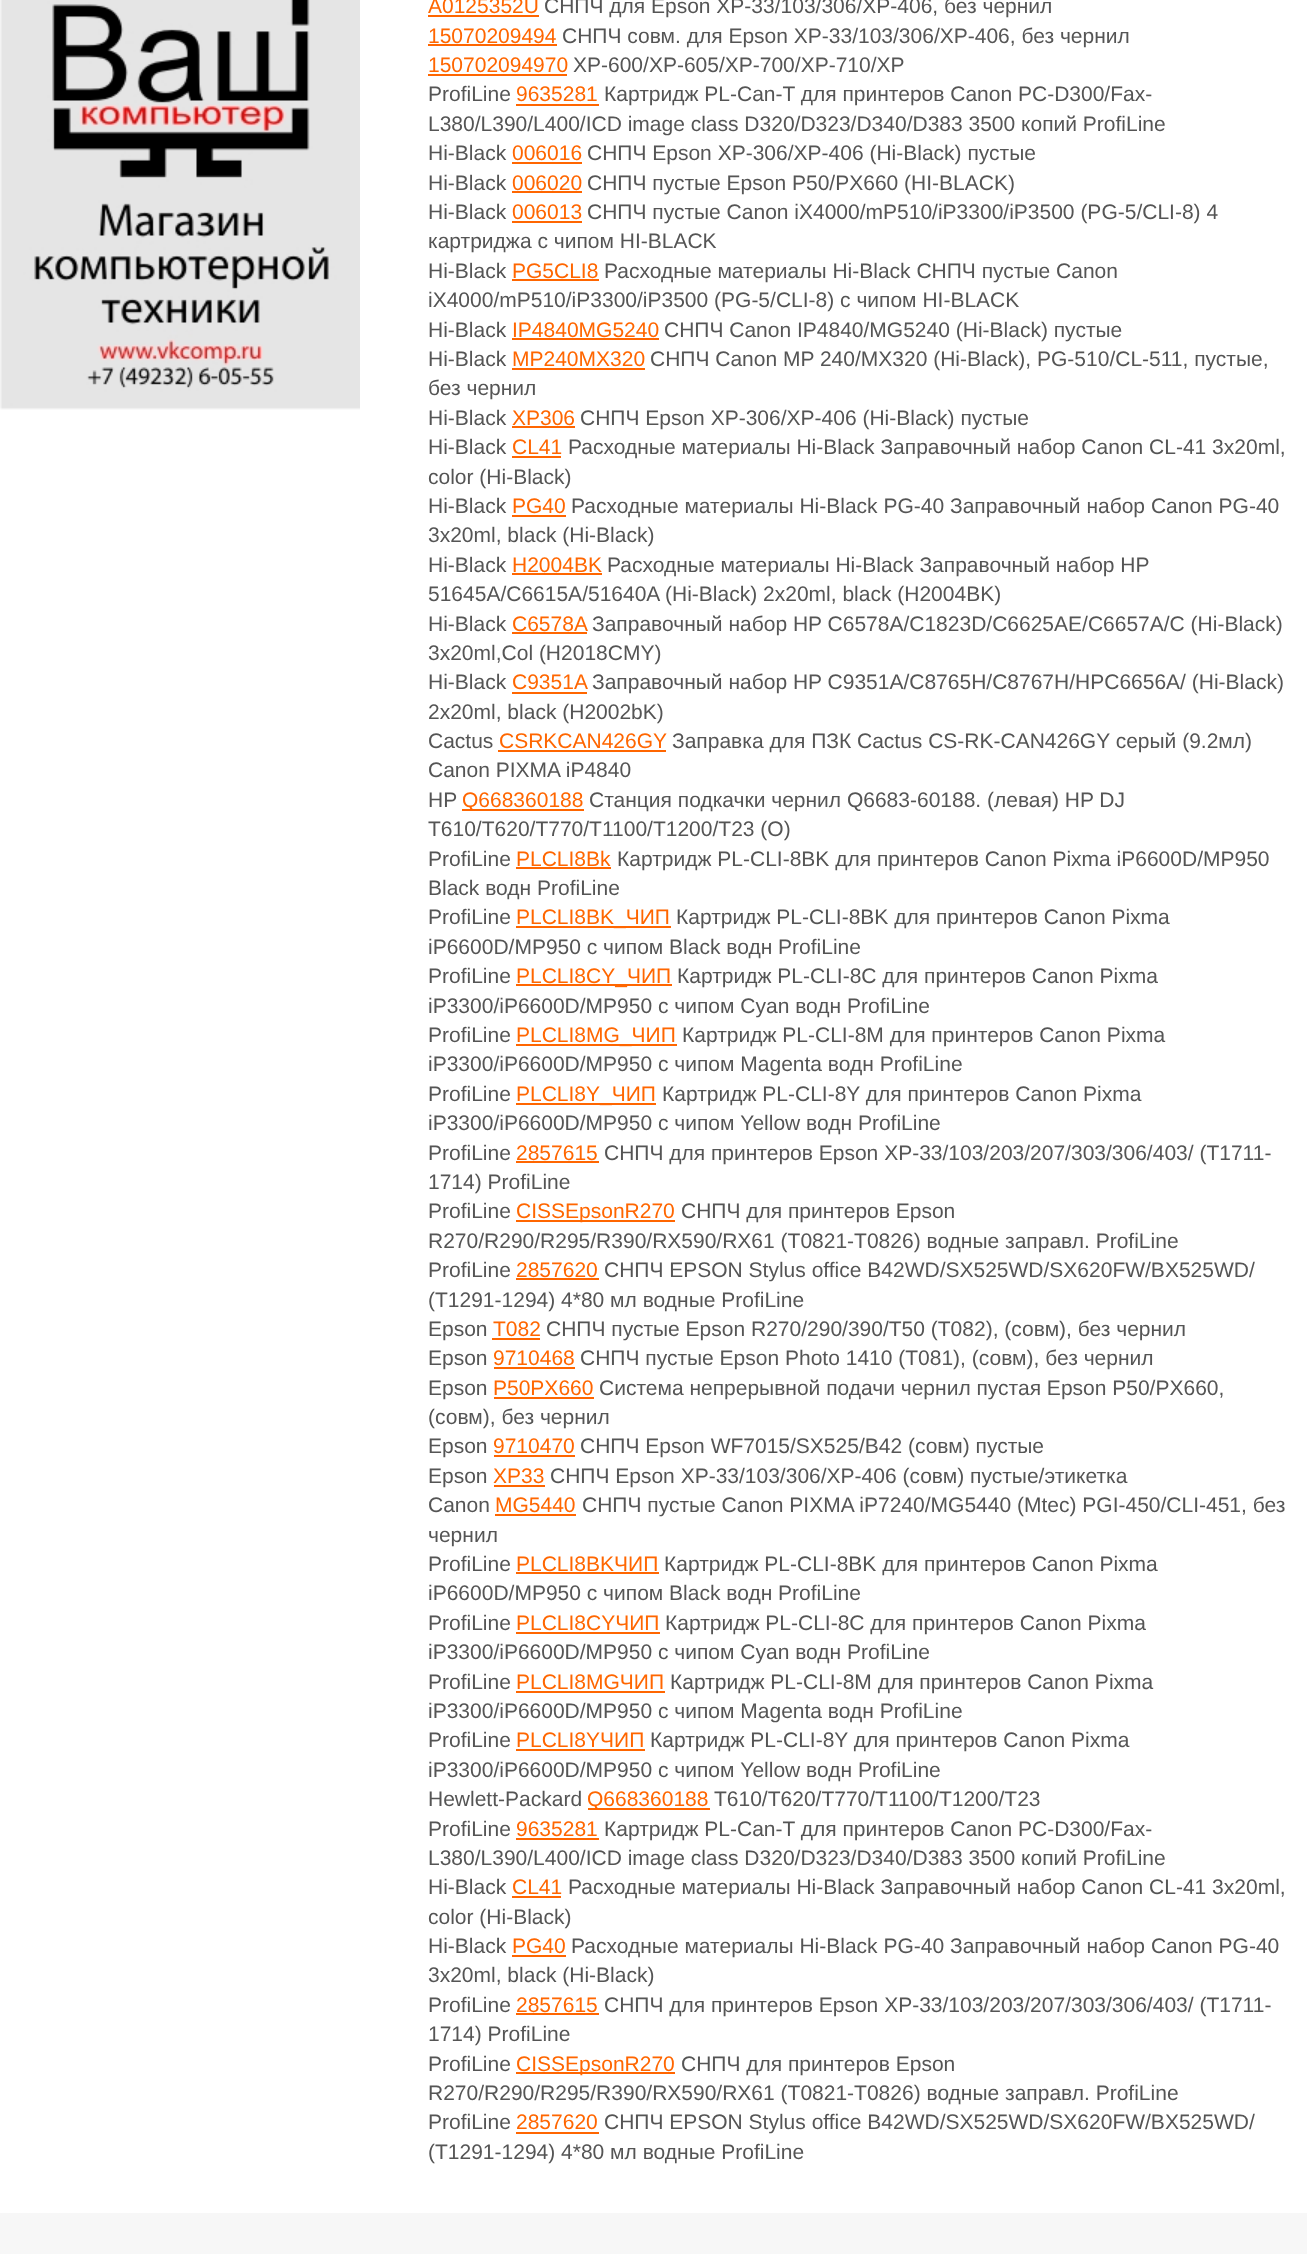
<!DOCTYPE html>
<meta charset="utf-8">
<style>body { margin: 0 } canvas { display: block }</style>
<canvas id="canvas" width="1307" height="2254"></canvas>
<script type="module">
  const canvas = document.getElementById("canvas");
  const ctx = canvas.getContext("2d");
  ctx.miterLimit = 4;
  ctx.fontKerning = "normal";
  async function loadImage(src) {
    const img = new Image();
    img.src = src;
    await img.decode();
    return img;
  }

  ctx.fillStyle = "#ffffff";
  ctx.fillRect(0, 0, 1307, 2254);
  ctx.drawImage(await loadImage("img1.png"), 0, 0, 360, 410);
  ctx.font = "21px Liberation Sans";
  ctx.fillStyle = "#ff6600";
  ctx.fillText("A0125352U", 428, 13);
  ctx.fillRect(428, 15, 111, 2);
  ctx.fillStyle = "#555555";
  ctx.fillText("СНПЧ для Epson XP-33/103/306/XP-406, без чернил", 544, 13);
  ctx.fillStyle = "#ff6600";
  ctx.fillText("15070209494", 428, 43);
  ctx.fillRect(428, 44, 129, 2);
  ctx.fillStyle = "#555555";
  ctx.fillText("СНПЧ совм. для Epson XP-33/103/306/XP-406, без чернил", 562, 43);
  ctx.fillStyle = "#ff6600";
  ctx.fillText("150702094970", 428, 72);
  ctx.fillRect(428, 74, 139, 2);
  ctx.fillStyle = "#555555";
  ctx.fillText("XP-600/XP-605/XP-700/XP-710/XP", 573, 72);
  ctx.fillText("ProfiLine", 428, 101);
  ctx.fillStyle = "#ff6600";
  ctx.fillText("9635281", 516, 101);
  ctx.fillRect(516, 104, 83, 2);
  ctx.fillStyle = "#555555";
  ctx.fillText("Картридж PL-Can-T для принтеров Canon PC-D300/Fax-", 604, 101);
  ctx.fillText("L380/L390/L400/ICD image class D320/D323/D340/D383 3500 копий ProfiLine", 428, 131);
  ctx.fillText("Hi-Black", 428, 160);
  ctx.fillStyle = "#ff6600";
  ctx.fillText("006016", 512, 160);
  ctx.fillRect(512, 162, 70, 2);
  ctx.fillStyle = "#555555";
  ctx.fillText("СНПЧ Epson XP-306/XP-406 (Hi-Black) пустые", 587, 160);
  ctx.fillText("Hi-Black", 428, 190);
  ctx.fillStyle = "#ff6600";
  ctx.fillText("006020", 512, 190);
  ctx.fillRect(512, 191, 70, 2);
  ctx.fillStyle = "#555555";
  ctx.fillText("СНПЧ пустые Epson P50/PX660 (HI-BLACK)", 587, 190);
  ctx.fillText("Hi-Black", 428, 219);
  ctx.fillStyle = "#ff6600";
  ctx.fillText("006013", 512, 219);
  ctx.fillRect(512, 221, 70, 2);
  ctx.fillStyle = "#555555";
  ctx.fillText("СНПЧ пустые Canon iX4000/mP510/iP3300/iP3500 (PG-5/CLI-8) 4", 587, 219);
  ctx.fillText("картриджа с чипом HI-BLACK", 428, 248);
  ctx.fillText("Hi-Black", 428, 278);
  ctx.fillStyle = "#ff6600";
  ctx.fillText("PG5CLI8", 512, 278);
  ctx.fillRect(512, 279, 87, 2);
  ctx.fillStyle = "#555555";
  ctx.fillText("Расходные материалы Hi-Black СНПЧ пустые Canon", 604, 278);
  ctx.fillText("iX4000/mP510/iP3300/iP3500 (PG-5/CLI-8) с чипом HI-BLACK", 428, 307);
  ctx.fillText("Hi-Black", 428, 337);
  ctx.fillStyle = "#ff6600";
  ctx.fillText("IP4840MG5240", 512, 337);
  ctx.fillRect(512, 338, 147, 2);
  ctx.fillStyle = "#555555";
  ctx.fillText("СНПЧ Canon IP4840/MG5240 (Hi-Black) пустые", 664, 337);
  ctx.fillText("Hi-Black", 428, 366);
  ctx.fillStyle = "#ff6600";
  ctx.fillText("MP240MX320", 512, 366);
  ctx.fillRect(512, 368, 133, 2);
  ctx.fillStyle = "#555555";
  ctx.fillText("СНПЧ Canon MP 240/MX320 (Hi-Black), PG-510/CL-511, пустые,", 650, 366);
  ctx.fillText("без чернил", 428, 395);
  ctx.fillText("Hi-Black", 428, 425);
  ctx.fillStyle = "#ff6600";
  ctx.fillText("XP306", 512, 425);
  ctx.fillRect(512, 426, 63, 2);
  ctx.fillStyle = "#555555";
  ctx.fillText("СНПЧ Epson XP-306/XP-406 (Hi-Black) пустые", 580, 425);
  ctx.fillText("Hi-Black", 428, 454);
  ctx.fillStyle = "#ff6600";
  ctx.fillText("CL41", 512, 454);
  ctx.fillRect(512, 456, 49, 2);
  ctx.fillStyle = "#555555";
  ctx.fillText("Расходные материалы Hi-Black Заправочный набор Canon CL-41 3x20ml,", 568, 454);
  ctx.fillText("color (Hi-Black)", 428, 484);
  ctx.fillText("Hi-Black", 428, 513);
  ctx.fillStyle = "#ff6600";
  ctx.fillText("PG40", 512, 513);
  ctx.fillRect(512, 515, 54, 2);
  ctx.fillStyle = "#555555";
  ctx.fillText("Расходные материалы Hi-Black PG-40 Заправочный набор Canon PG-40", 571, 513);
  ctx.fillText("3x20ml, black (Hi-Black)", 428, 542);
  ctx.fillText("Hi-Black", 428, 572);
  ctx.fillStyle = "#ff6600";
  ctx.fillText("H2004BK", 512, 572);
  ctx.fillRect(512, 573, 90, 2);
  ctx.fillStyle = "#555555";
  ctx.fillText("Расходные материалы Hi-Black Заправочный набор HP", 607, 572);
  ctx.fillText("51645A/C6615A/51640A (Hi-Black) 2x20ml, black (H2004BK)", 428, 601);
  ctx.fillText("Hi-Black", 428, 631);
  ctx.fillStyle = "#ff6600";
  ctx.fillText("C6578A", 512, 631);
  ctx.fillRect(512, 632, 75, 2);
  ctx.fillStyle = "#555555";
  ctx.fillText("Заправочный набор HP C6578A/C1823D/C6625AE/C6657A/C (Hi-Black)", 592, 631);
  ctx.fillText("3x20ml,Col (H2018CMY)", 428, 660);
  ctx.fillText("Hi-Black", 428, 689);
  ctx.fillStyle = "#ff6600";
  ctx.fillText("C9351A", 512, 689);
  ctx.fillRect(512, 692, 75, 2);
  ctx.fillStyle = "#555555";
  ctx.fillText("Заправочный набор HP C9351A/C8765H/C8767H/HPC6656A/ (Hi-Black)", 592, 689);
  ctx.fillText("2x20ml, black (H2002bK)", 428, 719);
  ctx.fillText("Cactus", 428, 748);
  ctx.fillStyle = "#ff6600";
  ctx.fillText("CSRKCAN426GY", 499, 748);
  ctx.fillRect(498, 750, 168, 2);
  ctx.fillStyle = "#555555";
  ctx.fillText("Заправка для ПЗК Cactus CS-RK-CAN426GY серый (9.2мл)", 672, 748);
  ctx.fillText("Canon PIXMA iP4840", 428, 777);
  ctx.fillText("HP", 428, 807);
  ctx.fillStyle = "#ff6600";
  ctx.fillRect(462, 809, 122, 2);
  ctx.fillText("Q668360188", 462, 807);
  ctx.fillStyle = "#555555";
  ctx.fillText("Станция подкачки чернил Q6683-60188. (левая) HP DJ", 589, 807);
  ctx.fillText("T610/T620/T770/T1100/T1200/T23 (O)", 428, 836);
  ctx.fillText("ProfiLine", 428, 866);
  ctx.fillStyle = "#ff6600";
  ctx.fillText("PLCLI8Bk", 516, 866);
  ctx.fillRect(516, 867, 95, 2);
  ctx.fillStyle = "#555555";
  ctx.fillText("Картридж PL-CLI-8BK для принтеров Canon Pixma iP6600D/MP950", 617, 866);
  ctx.fillText("Black водн ProfiLine", 428, 895);
  ctx.fillText("ProfiLine", 428, 924);
  ctx.fillStyle = "#ff6600";
  ctx.fillRect(516, 926, 155, 2);
  ctx.fillText("PLCLI8BK_ЧИП", 516, 924);
  ctx.fillStyle = "#555555";
  ctx.fillText("Картридж PL-CLI-8BK для принтеров Canon Pixma", 676, 924);
  ctx.fillText("iP6600D/MP950 с чипом Black водн ProfiLine", 428, 954);
  ctx.fillText("ProfiLine", 428, 983);
  ctx.fillStyle = "#ff6600";
  ctx.fillRect(516, 984, 156, 2);
  ctx.fillText("PLCLI8CY_ЧИП", 516, 983);
  ctx.fillStyle = "#555555";
  ctx.fillText("Картридж PL-CLI-8C для принтеров Canon Pixma", 677, 983);
  ctx.fillText("iP3300/iP6600D/MP950 с чипом Cyan водн ProfiLine", 428, 1013);
  ctx.fillText("ProfiLine", 428, 1042);
  ctx.fillStyle = "#ff6600";
  ctx.fillRect(516, 1044, 161, 2);
  ctx.fillText("PLCLI8MG_ЧИП", 516, 1042);
  ctx.fillStyle = "#555555";
  ctx.fillText("Картридж PL-CLI-8M для принтеров Canon Pixma", 682, 1042);
  ctx.fillText("iP3300/iP6600D/MP950 с чипом Magenta водн ProfiLine", 428, 1071);
  ctx.fillText("ProfiLine", 428, 1101);
  ctx.fillStyle = "#ff6600";
  ctx.fillRect(516, 1103, 140, 2);
  ctx.fillText("PLCLI8Y_ЧИП", 516, 1101);
  ctx.fillStyle = "#555555";
  ctx.fillText("Картридж PL-CLI-8Y для принтеров Canon Pixma", 662, 1101);
  ctx.fillText("iP3300/iP6600D/MP950 с чипом Yellow водн ProfiLine", 428, 1130);
  ctx.fillText("ProfiLine", 428, 1160);
  ctx.fillStyle = "#ff6600";
  ctx.fillText("2857615", 516, 1160);
  ctx.fillRect(516, 1161, 83, 2);
  ctx.fillStyle = "#555555";
  ctx.fillText("СНПЧ для принтеров Epson XP-33/103/203/207/303/306/403/ (T1711-", 604, 1160);
  ctx.fillText("1714) ProfiLine", 428, 1189);
  ctx.fillText("ProfiLine", 428, 1218);
  ctx.fillStyle = "#ff6600";
  ctx.fillRect(516, 1220, 159, 2);
  ctx.fillText("CISSEpsonR270", 516, 1218);
  ctx.fillStyle = "#555555";
  ctx.fillText("СНПЧ для принтеров Epson", 681, 1218);
  ctx.fillText("R270/R290/R295/R390/RX590/RX61 (T0821-T0826) водные заправл. ProfiLine", 428, 1248);
  ctx.fillText("ProfiLine", 428, 1277);
  ctx.fillStyle = "#ff6600";
  ctx.fillText("2857620", 516, 1277);
  ctx.fillRect(516, 1278, 83, 2);
  ctx.fillStyle = "#555555";
  ctx.fillText("СНПЧ EPSON Stylus office B42WD/SX525WD/SX620FW/BX525WD/", 604, 1277);
  ctx.fillText("(T1291-1294) 4*80 мл водные ProfiLine", 428, 1307);
  ctx.fillText("Epson", 428, 1336);
  ctx.fillStyle = "#ff6600";
  ctx.fillText("T082", 493, 1336);
  ctx.fillRect(492, 1338, 48, 2);
  ctx.fillStyle = "#555555";
  ctx.fillText("СНПЧ пустые Epson R270/290/390/T50 (T082), (совм), без чернил", 546, 1336);
  ctx.fillText("Epson", 428, 1365);
  ctx.fillStyle = "#ff6600";
  ctx.fillText("9710468", 493, 1365);
  ctx.fillRect(494, 1367, 81, 2);
  ctx.fillStyle = "#555555";
  ctx.fillText("СНПЧ пустые Epson Photo 1410 (T081), (совм), без чернил", 580, 1365);
  ctx.fillText("Epson", 428, 1395);
  ctx.fillStyle = "#ff6600";
  ctx.fillText("P50PX660", 493, 1395);
  ctx.fillRect(494, 1397, 100, 2);
  ctx.fillStyle = "#555555";
  ctx.fillText("Система непрерывной подачи чернил пустая Epson P50/PX660,", 599, 1395);
  ctx.fillText("(совм), без чернил", 428, 1424);
  ctx.fillText("Epson", 428, 1453);
  ctx.fillStyle = "#ff6600";
  ctx.fillText("9710470", 493, 1453);
  ctx.fillRect(494, 1455, 81, 2);
  ctx.fillStyle = "#555555";
  ctx.fillText("СНПЧ Epson WF7015/SX525/B42 (совм) пустые", 580, 1453);
  ctx.fillText("Epson", 428, 1483);
  ctx.fillStyle = "#ff6600";
  ctx.fillText("XP33", 493, 1483);
  ctx.fillRect(494, 1485, 51, 2);
  ctx.fillStyle = "#555555";
  ctx.fillText("СНПЧ Epson XP-33/103/306/XP-406 (совм) пустые/этикетка", 550, 1483);
  ctx.fillText("Canon", 428, 1512);
  ctx.fillStyle = "#ff6600";
  ctx.fillText("MG5440", 495, 1512);
  ctx.fillRect(495, 1514, 81, 2);
  ctx.fillStyle = "#555555";
  ctx.fillText("СНПЧ пустые Canon PIXMA iP7240/MG5440 (Mtec) PGI-450/CLI-451, без", 582, 1512);
  ctx.fillText("чернил", 428, 1542);
  ctx.fillText("ProfiLine", 428, 1571);
  ctx.fillStyle = "#ff6600";
  ctx.fillText("PLCLI8BKЧИП", 516, 1571);
  ctx.fillRect(516, 1572, 143, 2);
  ctx.fillStyle = "#555555";
  ctx.fillText("Картридж PL-CLI-8BK для принтеров Canon Pixma", 664, 1571);
  ctx.fillText("iP6600D/MP950 с чипом Black водн ProfiLine", 428, 1600);
  ctx.fillText("ProfiLine", 428, 1630);
  ctx.fillStyle = "#ff6600";
  ctx.fillText("PLCLI8CYЧИП", 516, 1630);
  ctx.fillRect(516, 1632, 144, 2);
  ctx.fillStyle = "#555555";
  ctx.fillText("Картридж PL-CLI-8C для принтеров Canon Pixma", 665, 1630);
  ctx.fillText("iP3300/iP6600D/MP950 с чипом Cyan водн ProfiLine", 428, 1659);
  ctx.fillText("ProfiLine", 428, 1689);
  ctx.fillStyle = "#ff6600";
  ctx.fillText("PLCLI8MGЧИП", 516, 1689);
  ctx.fillRect(516, 1691, 149, 2);
  ctx.fillStyle = "#555555";
  ctx.fillText("Картридж PL-CLI-8M для принтеров Canon Pixma", 670, 1689);
  ctx.fillText("iP3300/iP6600D/MP950 с чипом Magenta водн ProfiLine", 428, 1718);
  ctx.fillText("ProfiLine", 428, 1747);
  ctx.fillStyle = "#ff6600";
  ctx.fillText("PLCLI8YЧИП", 516, 1747);
  ctx.fillRect(516, 1749, 129, 2);
  ctx.fillStyle = "#555555";
  ctx.fillText("Картридж PL-CLI-8Y для принтеров Canon Pixma", 650, 1747);
  ctx.fillText("iP3300/iP6600D/MP950 с чипом Yellow водн ProfiLine", 428, 1777);
  ctx.fillText("Hewlett-Packard", 428, 1806);
  ctx.fillStyle = "#ff6600";
  ctx.fillRect(588, 1808, 122, 2);
  ctx.fillText("Q668360188", 587, 1806);
  ctx.fillStyle = "#555555";
  ctx.fillText("T610/T620/T770/T1100/T1200/T23", 714, 1806);
  ctx.fillText("ProfiLine", 428, 1836);
  ctx.fillStyle = "#ff6600";
  ctx.fillText("9635281", 516, 1836);
  ctx.fillRect(516, 1838, 83, 2);
  ctx.fillStyle = "#555555";
  ctx.fillText("Картридж PL-Can-T для принтеров Canon PC-D300/Fax-", 604, 1836);
  ctx.fillText("L380/L390/L400/ICD image class D320/D323/D340/D383 3500 копий ProfiLine", 428, 1865);
  ctx.fillText("Hi-Black", 428, 1894);
  ctx.fillStyle = "#ff6600";
  ctx.fillText("CL41", 512, 1894);
  ctx.fillRect(512, 1896, 49, 2);
  ctx.fillStyle = "#555555";
  ctx.fillText("Расходные материалы Hi-Black Заправочный набор Canon CL-41 3x20ml,", 568, 1894);
  ctx.fillText("color (Hi-Black)", 428, 1924);
  ctx.fillText("Hi-Black", 428, 1953);
  ctx.fillStyle = "#ff6600";
  ctx.fillText("PG40", 512, 1953);
  ctx.fillRect(512, 1955, 54, 2);
  ctx.fillStyle = "#555555";
  ctx.fillText("Расходные материалы Hi-Black PG-40 Заправочный набор Canon PG-40", 571, 1953);
  ctx.fillText("3x20ml, black (Hi-Black)", 428, 1982);
  ctx.fillText("ProfiLine", 428, 2012);
  ctx.fillStyle = "#ff6600";
  ctx.fillText("2857615", 516, 2012);
  ctx.fillRect(516, 2013, 83, 2);
  ctx.fillStyle = "#555555";
  ctx.fillText("СНПЧ для принтеров Epson XP-33/103/203/207/303/306/403/ (T1711-", 604, 2012);
  ctx.fillText("1714) ProfiLine", 428, 2041);
  ctx.fillText("ProfiLine", 428, 2071);
  ctx.fillStyle = "#ff6600";
  ctx.fillRect(516, 2072, 159, 2);
  ctx.fillText("CISSEpsonR270", 516, 2071);
  ctx.fillStyle = "#555555";
  ctx.fillText("СНПЧ для принтеров Epson", 681, 2071);
  ctx.fillText("R270/R290/R295/R390/RX590/RX61 (T0821-T0826) водные заправл. ProfiLine", 428, 2100);
  ctx.fillText("ProfiLine", 428, 2129);
  ctx.fillStyle = "#ff6600";
  ctx.fillText("2857620", 516, 2129);
  ctx.fillRect(516, 2132, 83, 2);
  ctx.fillStyle = "#555555";
  ctx.fillText("СНПЧ EPSON Stylus office B42WD/SX525WD/SX620FW/BX525WD/", 604, 2129);
  ctx.fillText("(T1291-1294) 4*80 мл водные ProfiLine", 428, 2159);
  ctx.fillStyle = "#f7f7f7";
  ctx.fillRect(0, 2213, 1307, 41);
</script>
